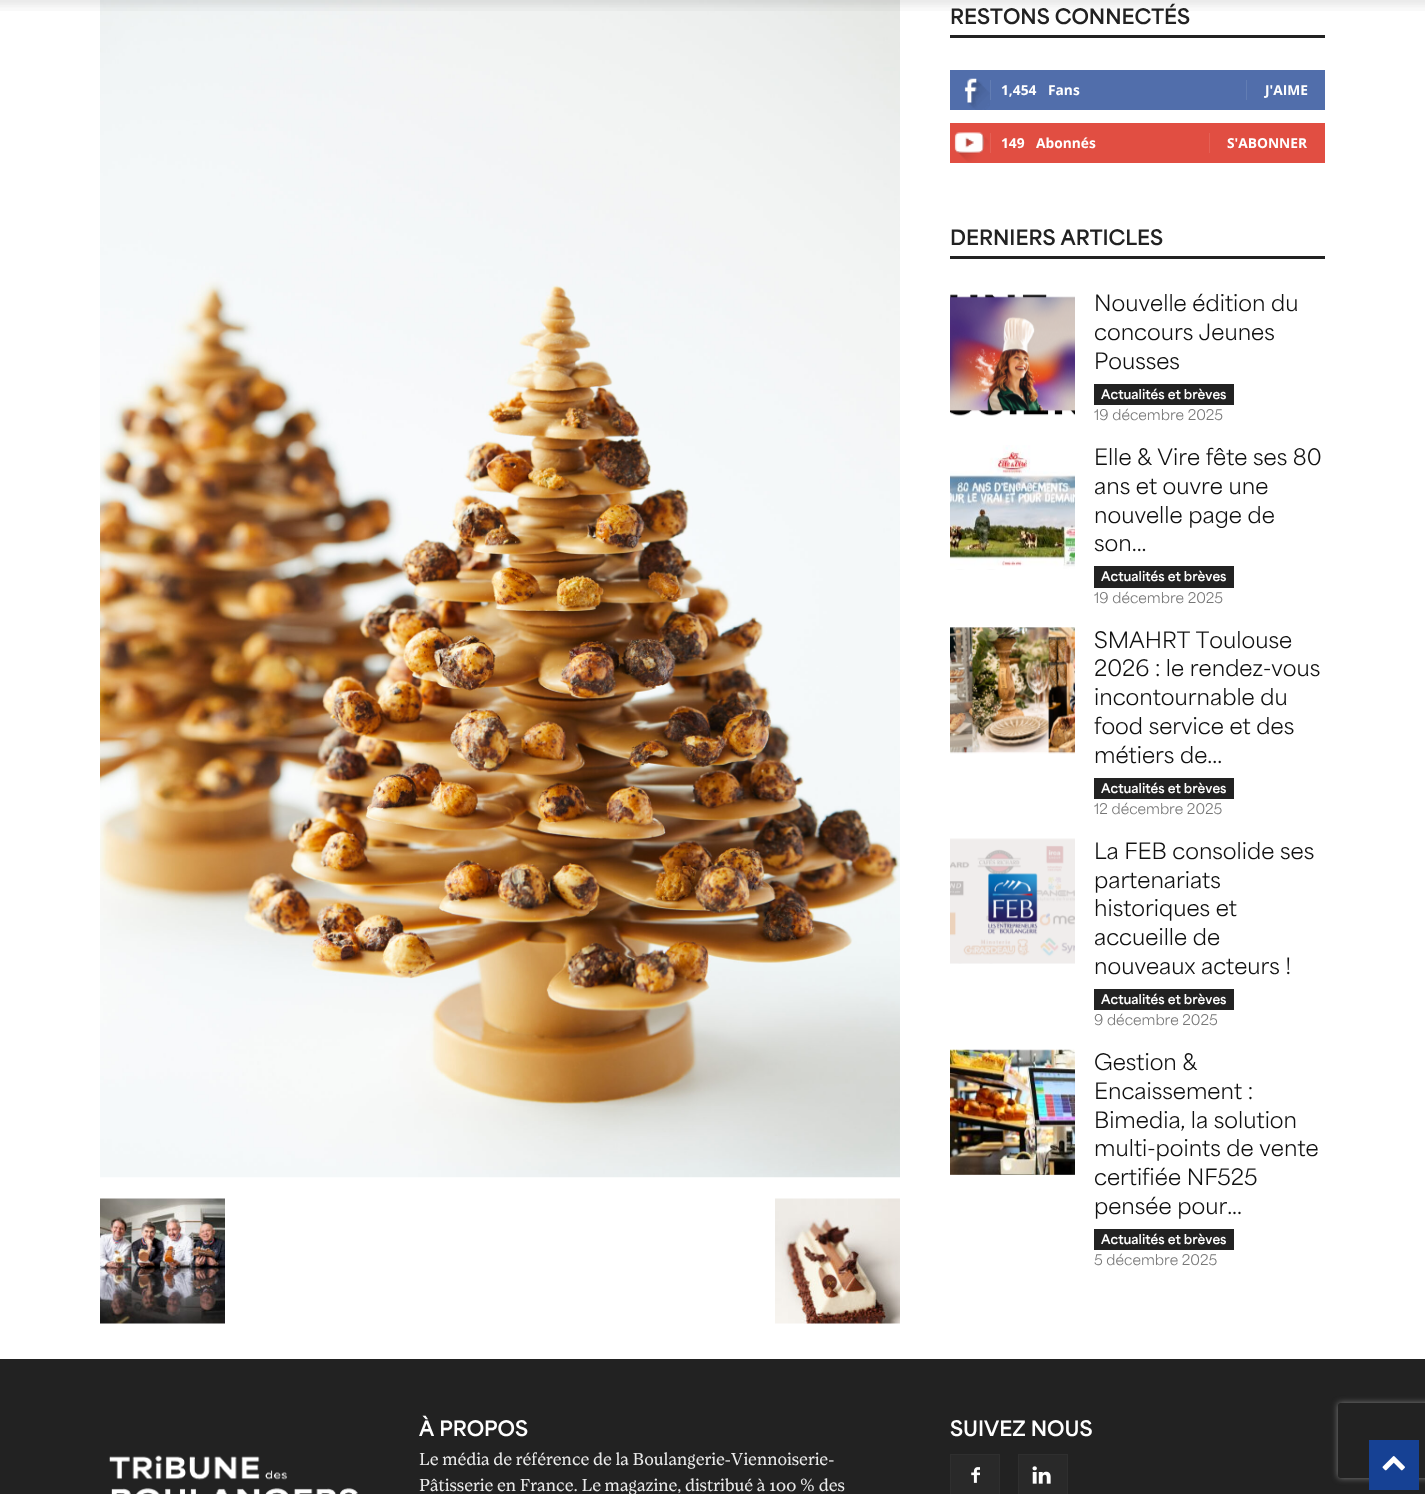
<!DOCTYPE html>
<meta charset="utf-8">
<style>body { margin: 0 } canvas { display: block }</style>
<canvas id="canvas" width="1425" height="1494"></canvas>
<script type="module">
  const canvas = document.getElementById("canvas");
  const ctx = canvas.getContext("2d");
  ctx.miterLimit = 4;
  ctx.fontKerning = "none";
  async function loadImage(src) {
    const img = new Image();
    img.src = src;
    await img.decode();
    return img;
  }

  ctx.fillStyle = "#ffffff";
  ctx.fillRect(0, 0, 1425, 1494);
  ctx.drawImage(await loadImage("img2.png"), 100, 0, 800, 1178);
  ctx.font = "bold 20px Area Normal";
  ctx.fillStyle = "#222222";
  ctx.fillText("RESTONS CONNECTÉS", 950, 24);
  ctx.drawImage(await loadImage("img1.png"), 0, 0, 1425, 11);
  ctx.drawImage(await loadImage("img3.png"), 100, 1198, 125, 126);
  ctx.drawImage(await loadImage("img4.png"), 775, 1198, 125, 126);
  ctx.fillRect(950, 35, 375, 3);
  ctx.fillStyle = "#516eab";
  ctx.fillRect(950, 70, 375, 40);
  ctx.drawImage(await loadImage("img5.png"), 964, 78, 26, 32);
  ctx.fillStyle = "#627db3";
  ctx.fillRect(990, 80, 1, 20);
  ctx.font = "bold 13.75px Open Sans";
  ctx.fillStyle = "#ffffff";
  ctx.fillText("1,454", 1001, 95);
  ctx.fillText("Fans", 1048, 95);
  ctx.fillStyle = "#627db3";
  ctx.fillRect(1246, 80, 1, 20);
  ctx.fillStyle = "#ffffff";
  ctx.fillText("J'AIME", 1265, 95);
  ctx.fillStyle = "#e14e42";
  ctx.fillRect(950, 123, 375, 40);
  ctx.drawImage(await loadImage("img6.png"), 954, 132, 35, 30);
  ctx.fillStyle = "#e46055";
  ctx.fillRect(990, 133, 1, 20);
  ctx.fillStyle = "#ffffff";
  ctx.fillText("149", 1001, 148);
  ctx.fillText("Abonnés", 1036, 148);
  ctx.fillStyle = "#e46055";
  ctx.fillRect(1209, 133, 1, 20);
  ctx.fillStyle = "#ffffff";
  ctx.fillText("S'ABONNER", 1227, 148);
  ctx.fillStyle = "#222222";
  ctx.fillRect(950, 256, 375, 3);
  ctx.font = "bold 20px Area Normal";
  ctx.fillText("DERNIERS ARTICLES", 950, 245);
  ctx.drawImage(await loadImage("img7.png"), 950, 294, 125, 122);
  ctx.drawImage(await loadImage("img8.png"), 950, 296, 125, 116);
  ctx.font = "21.25px Area Normal";
  ctx.fillStyle = "#111111";
  ctx.fillText("Nouvelle édition du", 1094, 311);
  ctx.fillText("concours Jeunes", 1094, 340);
  ctx.fillText("Pousses", 1094, 369);
  ctx.fillStyle = "#222222";
  ctx.fillRect(1094, 384, 140, 21);
  ctx.font = "bold 12.5px Area Normal";
  ctx.fillStyle = "#ffffff";
  ctx.fillText("Actualités et brèves", 1101, 399);
  ctx.font = "13.75px Area Normal";
  ctx.fillStyle = "#767676";
  ctx.fillText("19 décembre 2025", 1094, 420);
  ctx.drawImage(await loadImage("img10.png"), 950, 569, 125, 1);
  ctx.drawImage(await loadImage("img9.png"), 950, 445, 125, 125);
  ctx.font = "21.25px Area Normal";
  ctx.fillStyle = "#111111";
  ctx.fillText("Elle & Vire fête ses 80", 1094, 465);
  ctx.fillText("ans et ouvre une", 1094, 494);
  ctx.fillText("nouvelle page de", 1094, 523);
  ctx.fillText("son...", 1094, 551);
  ctx.fillStyle = "#222222";
  ctx.fillRect(1094, 566, 140, 22);
  ctx.font = "bold 12.5px Area Normal";
  ctx.fillStyle = "#ffffff";
  ctx.fillText("Actualités et brèves", 1101, 581);
  ctx.font = "13.75px Area Normal";
  ctx.fillStyle = "#767676";
  ctx.fillText("19 décembre 2025", 1094, 603);
  ctx.drawImage(await loadImage("img11.png"), 950, 627, 125, 127);
  ctx.font = "21.25px Area Normal";
  ctx.fillStyle = "#111111";
  ctx.fillText("SMAHRT Toulouse", 1094, 648);
  ctx.fillText("2026 : le rendez-vous", 1094, 676);
  ctx.fillText("incontournable du", 1094, 705);
  ctx.fillText("food service et des", 1094, 734);
  ctx.fillText("métiers de...", 1094, 763);
  ctx.fillStyle = "#222222";
  ctx.fillRect(1094, 778, 140, 21);
  ctx.font = "bold 12.5px Area Normal";
  ctx.fillStyle = "#ffffff";
  ctx.fillText("Actualités et brèves", 1101, 793);
  ctx.font = "13.75px Area Normal";
  ctx.fillStyle = "#767676";
  ctx.fillText("12 décembre 2025", 1094, 814);
  ctx.drawImage(await loadImage("img13.png"), 950, 963, 125, 1);
  ctx.drawImage(await loadImage("img12.png"), 950, 838, 125, 126);
  ctx.font = "21.25px Area Normal";
  ctx.fillStyle = "#111111";
  ctx.fillText("La FEB consolide ses", 1094, 859);
  ctx.fillText("partenariats", 1094, 888);
  ctx.fillText("historiques et", 1094, 916);
  ctx.fillText("accueille de", 1094, 945);
  ctx.fillText("nouveaux acteurs !", 1094, 974);
  ctx.fillStyle = "#222222";
  ctx.fillRect(1094, 989, 140, 21);
  ctx.font = "bold 12.5px Area Normal";
  ctx.fillStyle = "#ffffff";
  ctx.fillText("Actualités et brèves", 1101, 1004);
  ctx.font = "13.75px Area Normal";
  ctx.fillStyle = "#767676";
  ctx.fillText("9 décembre 2025", 1094, 1025);
  ctx.drawImage(await loadImage("img10.png"), 950, 1174, 125, 1);
  ctx.drawImage(await loadImage("img14.png"), 950, 1049, 125, 126);
  ctx.font = "21.25px Area Normal";
  ctx.fillStyle = "#111111";
  ctx.fillText("Gestion &", 1094, 1070);
  ctx.fillText("Encaissement :", 1094, 1099);
  ctx.fillText("Bimedia, la solution", 1094, 1128);
  ctx.fillText("multi-points de vente", 1094, 1156);
  ctx.fillText("certifiée NF525", 1094, 1185);
  ctx.fillText("pensée pour...", 1094, 1214);
  ctx.fillStyle = "#222222";
  ctx.fillRect(1094, 1229, 140, 21);
  ctx.font = "bold 12.5px Area Normal";
  ctx.fillStyle = "#ffffff";
  ctx.fillText("Actualités et brèves", 1101, 1244);
  ctx.font = "13.75px Area Normal";
  ctx.fillStyle = "#767676";
  ctx.fillText("5 décembre 2025", 1094, 1265);
  ctx.fillStyle = "#222222";
  ctx.fillRect(0, 1359, 1425, 135);
  ctx.font = "bold 20px Area Normal";
  ctx.fillStyle = "#ffffff";
  ctx.fillText("À PROPOS", 419, 1436);
  ctx.font = "17.5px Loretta";
  ctx.fillStyle = "#eaeaea";
  ctx.fillText("Le média de référence de la Boulangerie-Viennoiserie-", 419, 1465);
  ctx.fillText("Pâtisserie en France. Le magazine, distribué à 100 % des", 419, 1491);
  ctx.font = "bold 20px Area Normal";
  ctx.fillStyle = "#ffffff";
  ctx.fillText("SUIVEZ NOUS", 950, 1436);
  ctx.fillStyle = "#292929";
  ctx.fillRect(951, 1455, 48, 39);
  ctx.drawImage(await loadImage("img15.png"), 971, 1467, 9, 16);
  ctx.strokeStyle = "#2f2f2f";
  ctx.strokeRect(950.5, 1454.5, 49, 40);
  ctx.fillRect(1019, 1455, 48, 39);
  ctx.drawImage(await loadImage("img16.png"), 1032, 1466, 19, 18);
  ctx.strokeRect(1018.5, 1454.5, 49, 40);
  ctx.drawImage(await loadImage("img17.png"), 109, 1455, 249, 39);
  ctx.save();
  ctx.beginPath();
  ctx.moveTo(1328, 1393);
  ctx.lineTo(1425, 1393);
  ctx.lineTo(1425, 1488);
  ctx.lineTo(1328, 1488);
  ctx.closePath();
  ctx.moveTo(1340.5, 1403);
  ctx.lineTo(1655.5, 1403);
  ctx.bezierCurveTo(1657, 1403, 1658, 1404, 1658, 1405.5);
  ctx.lineTo(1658, 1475.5);
  ctx.bezierCurveTo(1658, 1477, 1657, 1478, 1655.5, 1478);
  ctx.lineTo(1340.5, 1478);
  ctx.bezierCurveTo(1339, 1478, 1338, 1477, 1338, 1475.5);
  ctx.lineTo(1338, 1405.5);
  ctx.bezierCurveTo(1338, 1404, 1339, 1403, 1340.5, 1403);
  ctx.closePath();
  ctx.clip("evenodd");
  ctx.fillStyle = "#808080";
  ctx.filter = "blur(3px)";
  ctx.beginPath();
  ctx.roundRect(1338, 1403, 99, 75, 2.5);
  ctx.fill();
  ctx.filter = "none";
  ctx.restore();
  ctx.fillStyle = "#164194";
  ctx.fillRect(1369, 1440, 50, 50);
  ctx.drawImage(await loadImage("img18.png"), 1382, 1456, 23, 15);
</script>
